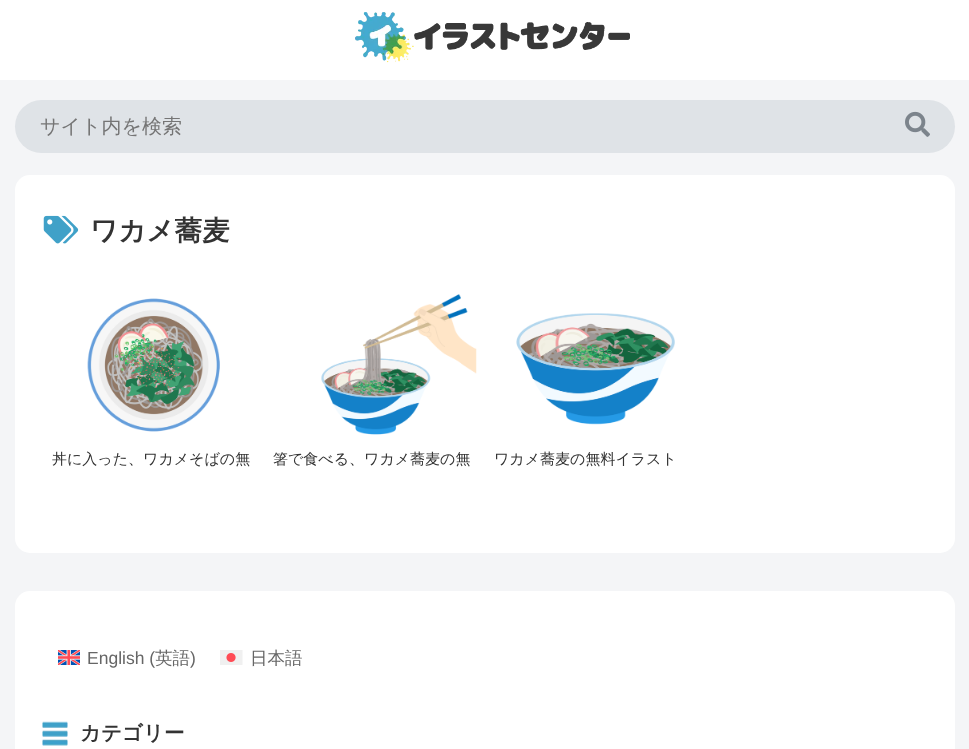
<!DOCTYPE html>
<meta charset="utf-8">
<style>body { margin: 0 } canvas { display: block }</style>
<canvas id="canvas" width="969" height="749"></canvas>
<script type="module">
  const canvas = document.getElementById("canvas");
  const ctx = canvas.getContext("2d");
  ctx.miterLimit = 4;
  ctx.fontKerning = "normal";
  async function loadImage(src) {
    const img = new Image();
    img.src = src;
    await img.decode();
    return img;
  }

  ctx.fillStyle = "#f4f5f7";
  ctx.fillRect(0, 0, 969, 749);
  ctx.fillStyle = "#ffffff";
  ctx.fillRect(0, 0, 969, 80);
  ctx.drawImage(await loadImage("img1.png"), 355, 12, 275, 51);
  ctx.fillStyle = "#dfe3e7";
  ctx.beginPath();
  ctx.roundRect(15, 100, 940, 53, 26.5);
  ctx.fill();
  ctx.font = "500 20px WenQuanYi Zen Hei";
  ctx.fillStyle = "#757575";
  ctx.fillText("サイト内を検索", 40, 133);
  ctx.drawImage(await loadImage("img2.png"), 905, 111, 25, 26);
  ctx.fillStyle = "#ffffff";
  ctx.beginPath();
  ctx.roundRect(15, 175, 940, 378, 15);
  ctx.fill();
  ctx.drawImage(await loadImage("img3.png"), 43, 215, 36, 29);
  ctx.font = "bold 27.5px WenQuanYi Zen Hei";
  ctx.fillStyle = "#333333";
  ctx.fillText("ワカメ蕎麦", 90, 240);
  ctx.drawImage(await loadImage("img4.png"), 87, 298, 133, 134);
  ctx.font = "500 15px WenQuanYi Zen Hei";
  ctx.fillText("丼に入った、ワカメそばの無", 52, 464);
  ctx.drawImage(await loadImage("img5.png"), 321, 294, 156, 141);
  ctx.fillText("箸で食べる、ワカメ蕎麦の無", 273, 464);
  ctx.drawImage(await loadImage("img6.png"), 516, 313, 159, 112);
  ctx.fillText("ワカメ蕎麦の無料イラスト", 494, 464);
  ctx.fillStyle = "#ffffff";
  ctx.beginPath();
  ctx.roundRect(15, 591, 940, 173, 15);
  ctx.fill();
  ctx.drawImage(await loadImage("img7.png"), 58, 650, 22, 15);
  ctx.font = "17.5px Liberation Sans";
  ctx.fillStyle = "#666666";
  ctx.fillText("English (", 87, 664);
  ctx.font = "500 17.5px WenQuanYi Zen Hei";
  ctx.fillText("英語", 155, 664);
  ctx.font = "17.5px Liberation Sans";
  ctx.fillText(")", 190, 664);
  ctx.drawImage(await loadImage("img8.png"), 220, 650, 23, 15);
  ctx.font = "500 17.5px WenQuanYi Zen Hei";
  ctx.fillText("日本語", 250, 664);
  ctx.drawImage(await loadImage("img9.png"), 42, 721, 26, 25);
  ctx.font = "bold 20.5px WenQuanYi Zen Hei";
  ctx.fillStyle = "#333333";
  ctx.fillText("カテゴリー", 80, 740);
</script>
